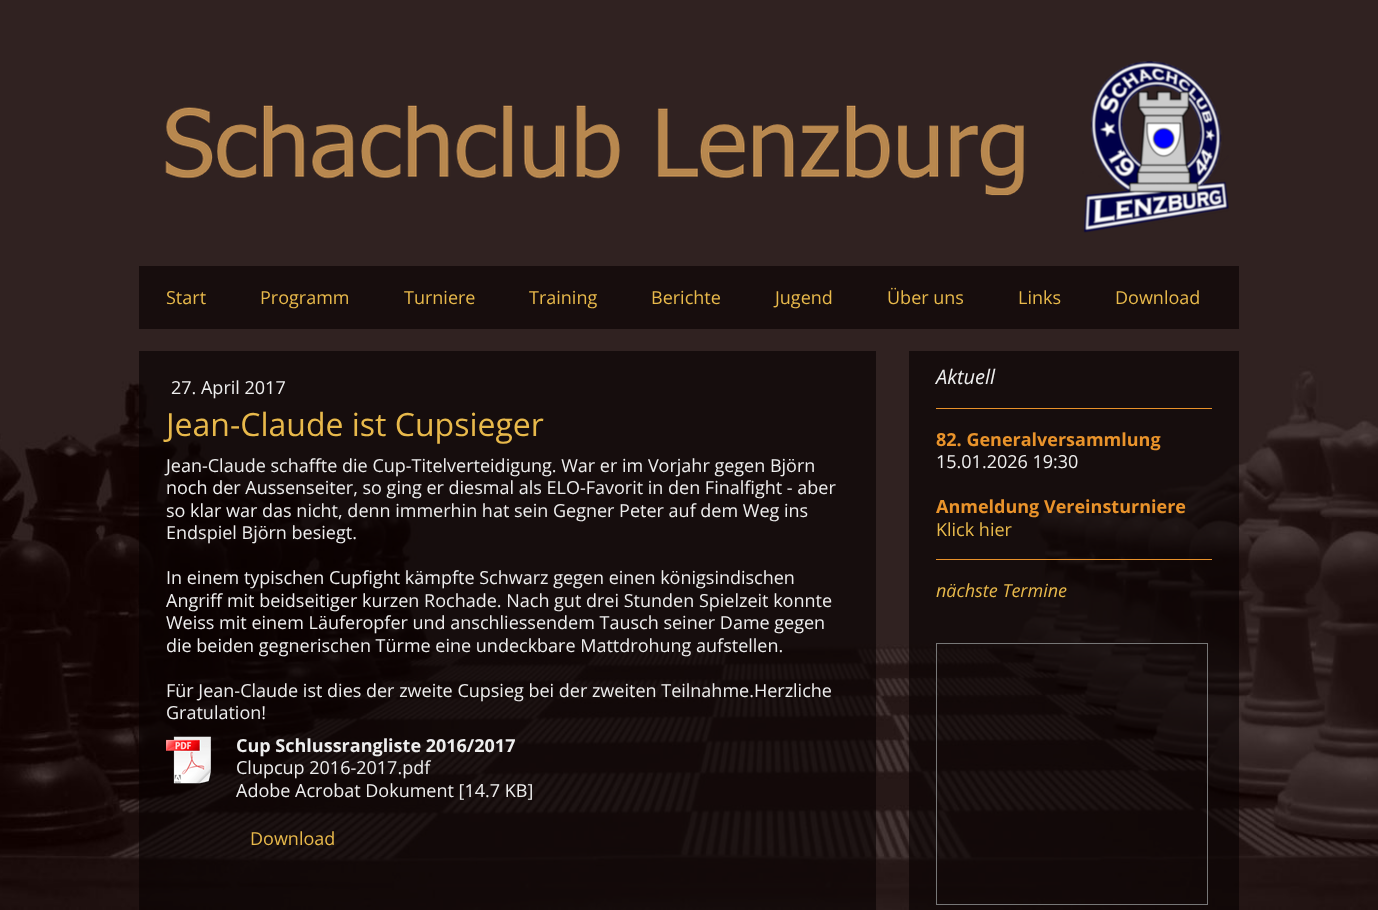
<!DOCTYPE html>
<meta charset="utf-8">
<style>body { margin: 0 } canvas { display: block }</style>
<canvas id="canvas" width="1378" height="910"></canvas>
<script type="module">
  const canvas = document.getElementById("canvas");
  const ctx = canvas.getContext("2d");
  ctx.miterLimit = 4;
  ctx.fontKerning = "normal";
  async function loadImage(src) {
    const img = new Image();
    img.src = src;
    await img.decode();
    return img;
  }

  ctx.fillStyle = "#ffffff";
  ctx.fillRect(0, 0, 1378, 910);
  ctx.drawImage(await loadImage("img1.png"), 0, 0, 1378, 910);
  ctx.drawImage(await loadImage("img2.png"), 165, 61, 1064, 172);
  ctx.fillStyle = "#170d0d";
  ctx.fillRect(139, 266, 1100, 63);
  ctx.font = "18px Open Sans";
  ctx.fillStyle = "#e8b94b";
  ctx.fillText("Start", 166, 304);
  ctx.fillText("Programm", 260, 304);
  ctx.fillText("Turniere", 404, 304);
  ctx.fillText("Training", 529, 304);
  ctx.fillText("Berichte", 651, 304);
  ctx.fillText("Jugend", 775, 304);
  ctx.fillText("Über uns", 887, 304);
  ctx.fillText("Links", 1018, 304);
  ctx.fillText("Download", 1115, 304);
  ctx.fillStyle = "rgba(8, 1, 1, 0.63)";
  ctx.fillRect(139, 351, 737, 559);
  ctx.fillStyle = "#eeeeee";
  ctx.fillText("27. April 2017", 171, 394);
  ctx.font = "32px Open Sans";
  ctx.fillStyle = "#e8b94b";
  ctx.fillText("Jean-Claude ist Cupsieger", 166, 436);
  ctx.font = "18px Open Sans";
  ctx.fillStyle = "#eeeeee";
  ctx.fillText("Jean-Claude schaffte die Cup-Titelverteidigung. War er im Vorjahr gegen Björn", 166, 472);
  ctx.fillText("noch der Aussenseiter, so ging er diesmal als ELO-Favorit in den Finalfight - aber", 166, 494);
  ctx.fillText("so klar war das nicht, denn immerhin hat sein Gegner Peter auf dem Weg ins", 166, 517);
  ctx.fillText("Endspiel Björn besiegt.", 166, 539);
  ctx.fillText("In einem typischen Cupfight kämpfte Schwarz gegen einen königsindischen", 166, 584);
  ctx.fillText("Angriff mit beidseitiger kurzen Rochade. Nach gut drei Stunden Spielzeit konnte", 166, 607);
  ctx.fillText("Weiss mit einem Läuferopfer und anschliessendem Tausch seiner Dame gegen", 166, 629);
  ctx.fillText("die beiden gegnerischen Türme eine undeckbare Mattdrohung aufstellen.", 166, 652);
  ctx.fillText("Für Jean-Claude ist dies der zweite Cupsieg bei der zweiten Teilnahme.Herzliche", 166, 697);
  ctx.fillText("Gratulation!", 166, 719);
  ctx.drawImage(await loadImage("img3.png"), 166, 736, 45, 48);
  ctx.font = "bold 18px Open Sans";
  ctx.fillText("Cup Schlussrangliste 2016/2017", 236, 752);
  ctx.font = "18px Open Sans";
  ctx.fillText("Clupcup 2016-2017.pdf", 236, 774);
  ctx.fillText("Adobe Acrobat Dokument [14.7 KB]", 236, 797);
  ctx.fillStyle = "#e8b94b";
  ctx.fillText("Download", 250, 845);
  ctx.fillStyle = "rgba(8, 1, 1, 0.63)";
  ctx.fillRect(909, 351, 330, 559);
  ctx.font = "italic 20px Open Sans";
  ctx.fillStyle = "#eeeeee";
  ctx.fillText("Aktuell", 936, 384);
  ctx.fillStyle = "#e8912a";
  ctx.fillRect(936, 408, 276, 1);
  ctx.font = "bold 18px Open Sans";
  ctx.fillStyle = "#e9932b";
  ctx.fillText("82. Generalversammlung", 936, 446);
  ctx.font = "18px Open Sans";
  ctx.fillStyle = "#eeeeee";
  ctx.fillText("15.01.2026 19:30", 936, 468);
  ctx.font = "bold 18px Open Sans";
  ctx.fillStyle = "#e9932b";
  ctx.fillText("Anmeldung Vereinsturniere", 936, 513);
  ctx.font = "18px Open Sans";
  ctx.fillStyle = "#e8b94b";
  ctx.fillText("Klick hier", 936, 536);
  ctx.fillStyle = "#e8912a";
  ctx.fillRect(936, 559, 276, 1);
  ctx.font = "italic 18px Open Sans";
  ctx.fillStyle = "#e8b94b";
  ctx.fillText("nächste Termine", 936, 597);
  ctx.strokeStyle = "#777777";
  ctx.strokeRect(936.5, 643.5, 271, 261);
</script>
